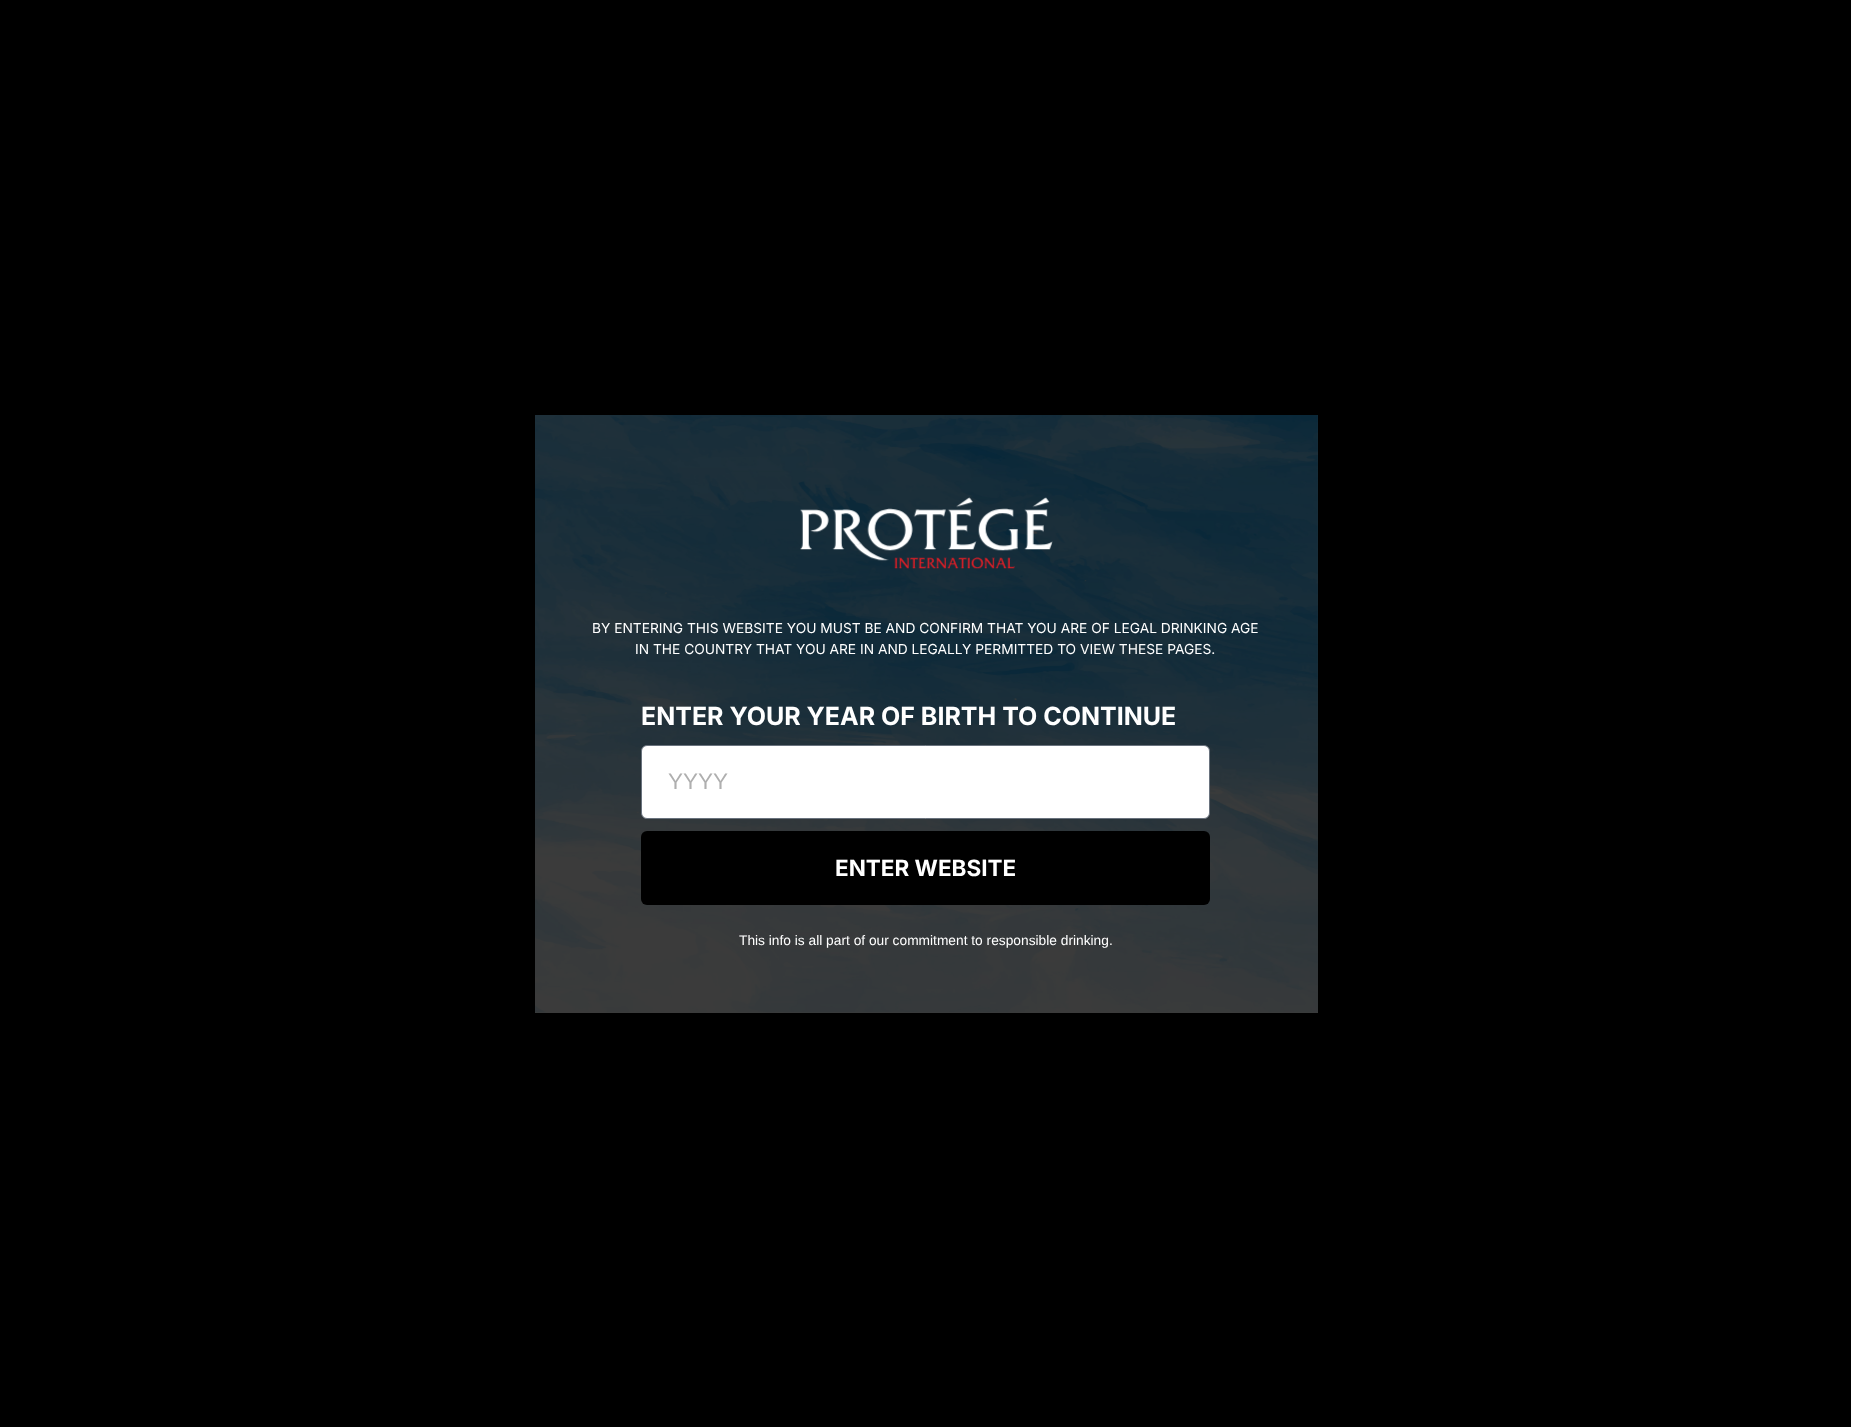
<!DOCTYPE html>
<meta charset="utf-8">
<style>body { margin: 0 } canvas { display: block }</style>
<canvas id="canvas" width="1851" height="1427"></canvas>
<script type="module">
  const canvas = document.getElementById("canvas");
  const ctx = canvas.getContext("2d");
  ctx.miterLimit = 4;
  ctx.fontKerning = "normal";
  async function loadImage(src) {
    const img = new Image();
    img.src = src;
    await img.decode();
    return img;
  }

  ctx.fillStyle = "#000000";
  ctx.fillRect(0, 0, 1851, 1427);
  ctx.fillStyle = "#ffffff";
  ctx.fillRect(535, 415, 783, 598);
  ctx.drawImage(await loadImage("img1.png"), 535, 415, 783, 598);
  ctx.fillStyle = "rgba(0, 0, 0, 0.77)";
  ctx.fillRect(535, 415, 783, 598);
  ctx.drawImage(await loadImage("img2.png"), 800, 497, 253, 72);
  ctx.font = "13.75px Inter";
  ctx.fillStyle = "#ffffff";
  ctx.fillText("BY ENTERING THIS WEBSITE YOU MUST BE AND CONFIRM THAT YOU ARE OF LEGAL DRINKING AGE", 592, 633);
  ctx.fillText("IN THE COUNTRY THAT YOU ARE IN AND LEGALLY PERMITTED TO VIEW THESE PAGES.", 635, 654);
  ctx.font = "bold 25px Inter";
  ctx.fillText("ENTER YOUR YEAR OF BIRTH TO CONTINUE", 641, 725);
  ctx.beginPath();
  ctx.roundRect(641.5, 745.5, 568, 73, 5.5);
  ctx.fill();
  ctx.strokeStyle = "#69727d";
  ctx.stroke();
  ctx.font = "22.5px Liberation Sans";
  ctx.fillStyle = "#afafaf";
  ctx.fillText("YYYY", 668, 789);
  ctx.fillStyle = "#000000";
  ctx.beginPath();
  ctx.roundRect(641, 831, 569, 74, 6);
  ctx.fill();
  ctx.font = "bold 22.5px Inter";
  ctx.fillStyle = "#ffffff";
  ctx.fillText("ENTER WEBSITE", 835, 876);
  ctx.font = "13.75px Liberation Sans";
  ctx.fillText("This info is all part of our commitment to responsible drinking.", 739, 945);
</script>
